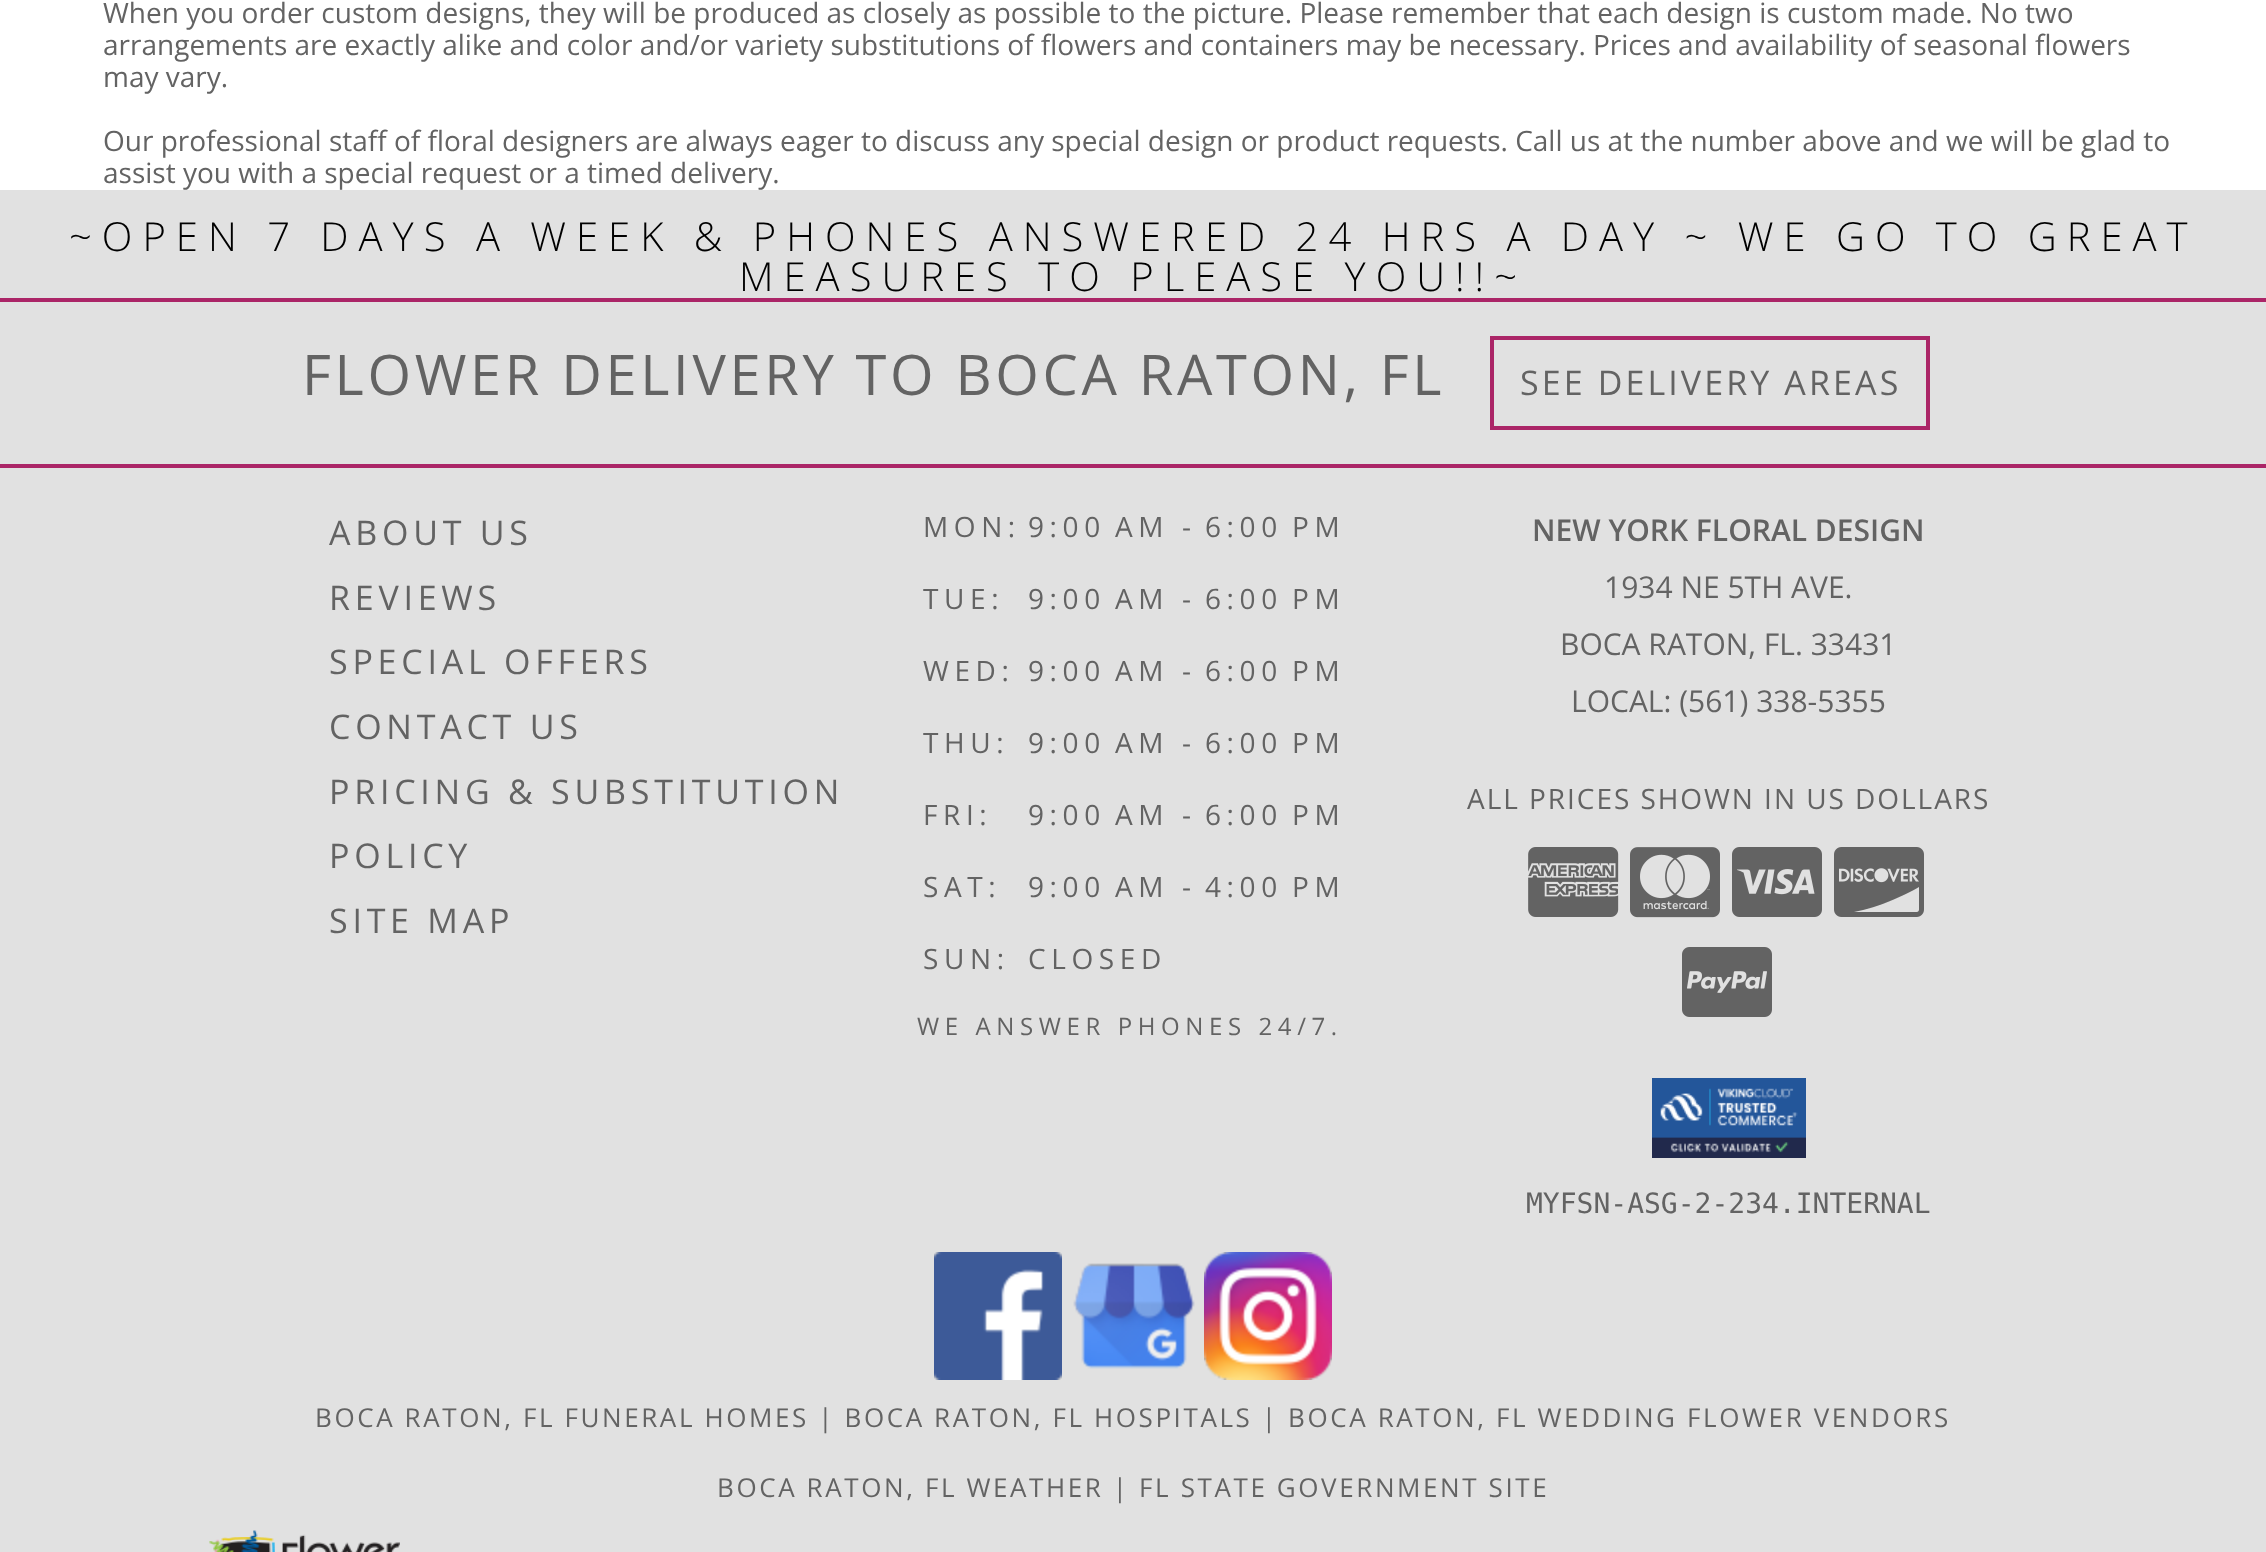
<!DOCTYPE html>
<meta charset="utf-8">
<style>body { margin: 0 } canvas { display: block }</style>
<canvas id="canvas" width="2266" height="1552"></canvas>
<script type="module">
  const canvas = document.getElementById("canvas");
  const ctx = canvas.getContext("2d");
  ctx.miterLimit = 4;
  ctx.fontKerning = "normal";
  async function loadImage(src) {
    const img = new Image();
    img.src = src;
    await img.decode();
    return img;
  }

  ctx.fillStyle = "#ffffff";
  ctx.fillRect(0, 0, 2266, 1552);
  ctx.font = "28px Open Sans";
  ctx.fillStyle = "#636363";
  ctx.fillText("When you order custom designs, they will be produced as closely as possible to the picture. Please remember that each design is custom made. No two", 103, 23);
  ctx.fillText("arrangements are exactly alike and color and/or variety substitutions of flowers and containers may be necessary. Prices and availability of seasonal flowers", 103, 55);
  ctx.fillText("may vary.", 103, 87);
  ctx.fillText("Our professional staff of floral designers are always eager to discuss any special design or product requests. Call us at the number above and we will be glad to", 103, 151);
  ctx.fillText("assist you with a special request or a timed delivery.", 103, 183);
  ctx.fillStyle = "#e1e1e1";
  ctx.fillRect(0, 190, 2266, 1362);
  ctx.letterSpacing = "10px";
  ctx.font = "300 40px Open Sans";
  ctx.fillStyle = "#000000";
  ctx.fillText("~OPEN 7 DAYS A WEEK & PHONES ANSWERED 24 HRS A DAY ~ WE GO TO GREAT", 69, 251);
  ctx.fillText("MEASURES TO PLEASE YOU!!~", 739, 291);
  ctx.fillStyle = "#ab2567";
  ctx.fillRect(0, 298, 2266, 4);
  ctx.fillRect(0, 464, 2266, 4);
  ctx.letterSpacing = "3.65px";
  ctx.font = "56px Open Sans";
  ctx.fillStyle = "#636363";
  ctx.fillText("FLOWER DELIVERY TO BOCA RATON, FL", 302, 395);
  ctx.strokeStyle = "#ab2567";
  ctx.lineWidth = 4;
  ctx.strokeRect(1492, 338, 436, 90);
  ctx.letterSpacing = "3.1px";
  ctx.font = "34px Open Sans";
  ctx.fillText("SEE DELIVERY AREAS", 1520, 395);
  ctx.letterSpacing = "4.75px";
  ctx.fillText("ABOUT US", 329, 545);
  ctx.fillText("REVIEWS", 329, 610);
  ctx.fillText("SPECIAL OFFERS", 329, 674);
  ctx.fillText("CONTACT US", 329, 739);
  ctx.fillText("PRICING & SUBSTITUTION", 329, 804);
  ctx.fillText("POLICY", 329, 868);
  ctx.fillText("SITE MAP", 329, 933);
  ctx.letterSpacing = "5.6px";
  ctx.font = "28px Open Sans";
  ctx.fillText("MON:", 923, 537);
  ctx.fillText("9:00 AM -", 1028, 537);
  ctx.fillText("6:00 PM", 1205, 537);
  ctx.fillText("TUE:", 923, 609);
  ctx.fillText("9:00 AM -", 1028, 609);
  ctx.fillText("6:00 PM", 1205, 609);
  ctx.fillText("WED:", 923, 681);
  ctx.fillText("9:00 AM -", 1028, 681);
  ctx.fillText("6:00 PM", 1205, 681);
  ctx.fillText("THU:", 923, 753);
  ctx.fillText("9:00 AM -", 1028, 753);
  ctx.fillText("6:00 PM", 1205, 753);
  ctx.fillText("FRI:", 923, 825);
  ctx.fillText("9:00 AM -", 1028, 825);
  ctx.fillText("6:00 PM", 1205, 825);
  ctx.fillText("SAT:", 923, 897);
  ctx.fillText("9:00 AM -", 1028, 897);
  ctx.fillText("4:00 PM", 1205, 897);
  ctx.fillText("SUN:", 923, 969);
  ctx.fillText("CLOSED", 1028, 969);
  ctx.font = "24px Open Sans";
  ctx.fillText("WE ANSWER PHONES 24/7.", 917, 1035);
  ctx.letterSpacing = "0px";
  ctx.font = "600 30px Open Sans";
  ctx.fillText("NEW YORK FLORAL DESIGN", 1532, 541);
  ctx.font = "30px Open Sans";
  ctx.fillText("1934 NE 5TH AVE.", 1604, 598);
  ctx.fillText("BOCA RATON, FL. 33431", 1560, 655);
  ctx.fillText("LOCAL: (561) 338-5355", 1571, 712);
  ctx.letterSpacing = "1.95px";
  ctx.font = "28px Open Sans";
  ctx.fillText("ALL PRICES SHOWN IN US DOLLARS", 1467, 809);
  ctx.drawImage(await loadImage("img1.png"), 1528, 847, 91, 70);
  ctx.drawImage(await loadImage("img2.png"), 1630, 847, 90, 71);
  ctx.drawImage(await loadImage("img3.png"), 1732, 847, 90, 70);
  ctx.drawImage(await loadImage("img4.png"), 1834, 847, 90, 70);
  ctx.drawImage(await loadImage("img5.png"), 1682, 947, 90, 70);
  ctx.drawImage(await loadImage("img6.png"), 1652, 1078, 154, 80);
  ctx.letterSpacing = "0px";
  ctx.font = "28px DejaVu Sans Mono";
  ctx.fillText("MYFSN-ASG-2-234.INTERNAL", 1526, 1213);
  ctx.drawImage(await loadImage("img7.png"), 934, 1252, 128, 128);
  ctx.drawImage(await loadImage("img8.png"), 1073, 1263, 122, 106);
  ctx.drawImage(await loadImage("img9.png"), 1204, 1252, 128, 128);
  ctx.letterSpacing = "2.6px";
  ctx.font = "26px Open Sans";
  ctx.fillText("BOCA RATON, FL FUNERAL HOMES | BOCA RATON, FL HOSPITALS | BOCA RATON, FL WEDDING FLOWER VENDORS", 315, 1427);
  ctx.fillText("BOCA RATON, FL WEATHER | FL STATE GOVERNMENT SITE", 717, 1497);
  ctx.drawImage(await loadImage("img10.png"), 209, 1530, 191, 22);
</script>
